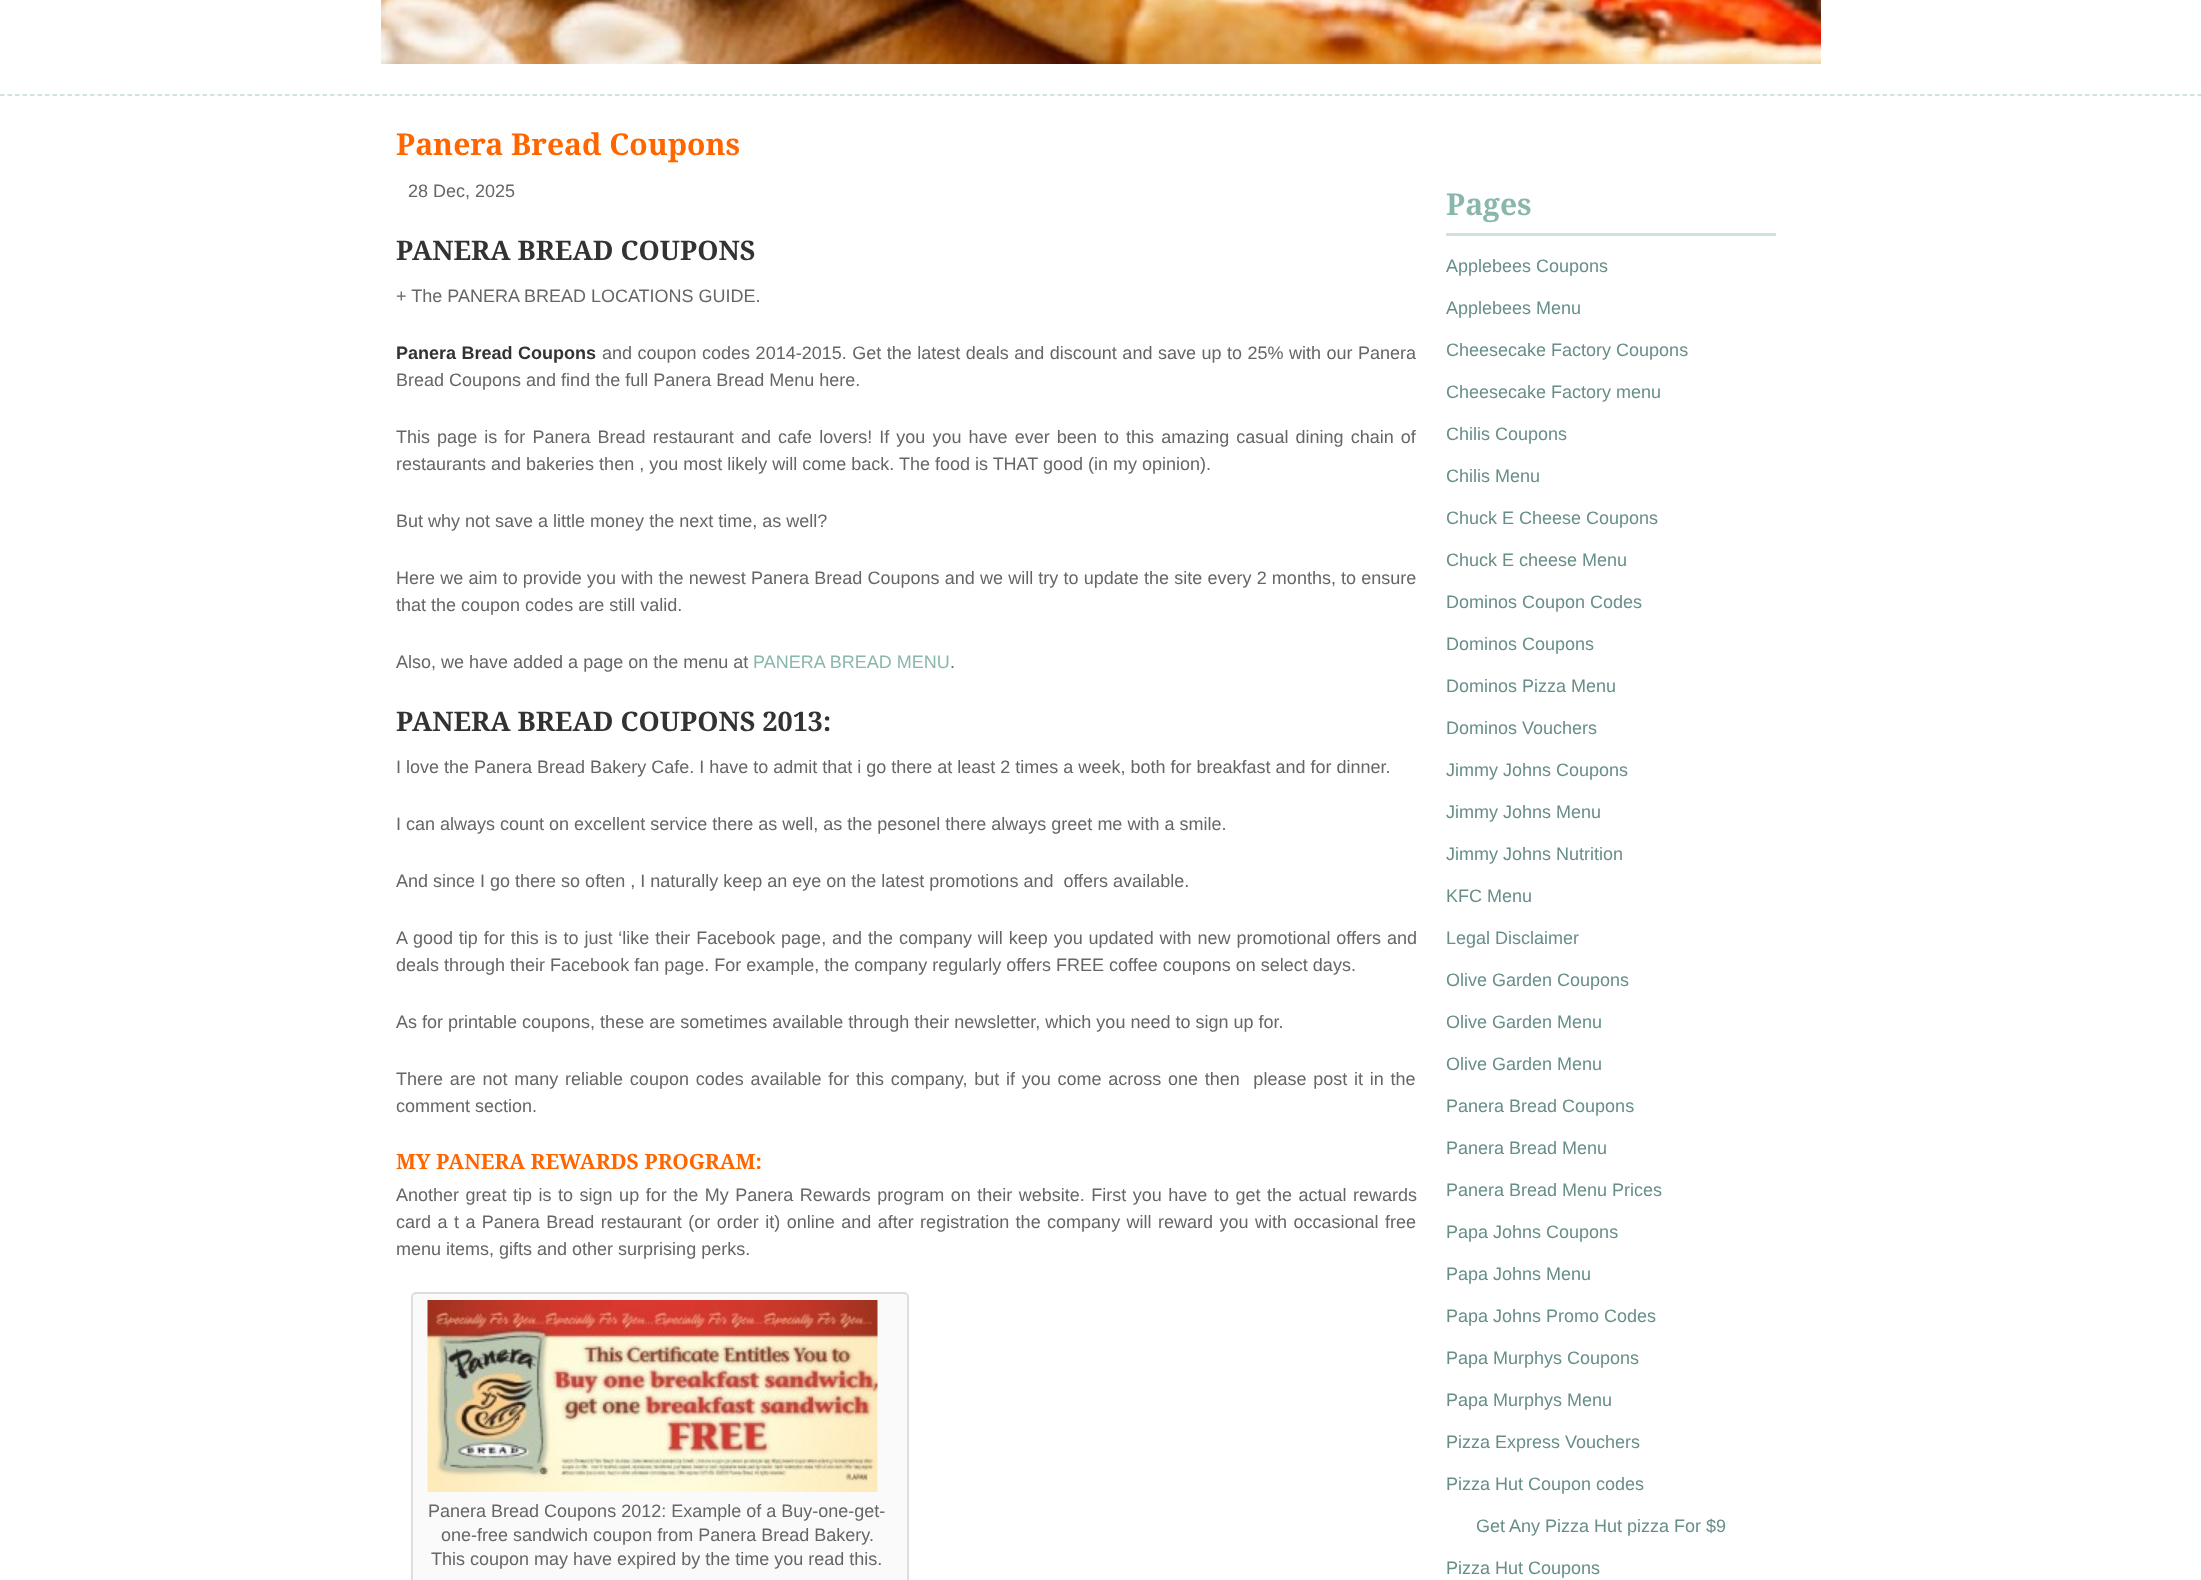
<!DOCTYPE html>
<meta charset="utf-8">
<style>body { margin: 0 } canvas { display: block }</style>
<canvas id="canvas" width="2201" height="1580"></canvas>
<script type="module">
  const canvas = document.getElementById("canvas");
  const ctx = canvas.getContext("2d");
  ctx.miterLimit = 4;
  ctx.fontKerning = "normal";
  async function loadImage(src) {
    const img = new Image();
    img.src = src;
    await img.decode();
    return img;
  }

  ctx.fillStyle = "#ffffff";
  ctx.fillRect(0, 0, 2201, 1580);
  ctx.beginPath();
  ctx.moveTo(0, 95);
  ctx.lineTo(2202, 95);
  ctx.strokeStyle = "#c3dad5";
  ctx.lineWidth = 1.5;
  ctx.setLineDash([4.5, 3]);
  ctx.stroke();
  ctx.drawImage(await loadImage("img1.png"), 381, 0, 1440, 64);
  ctx.font = "bold 30px Droid Serif";
  ctx.fillStyle = "#ff6600";
  ctx.fillText("Panera Bread Coupons", 396, 155);
  ctx.font = "18px Liberation Sans";
  ctx.fillStyle = "#666666";
  ctx.fillText("28 Dec, 2025", 408, 197);
  ctx.font = "bold 27px Droid Serif";
  ctx.fillStyle = "#333333";
  ctx.fillText("PANERA BREAD COUPONS", 396, 260);
  ctx.font = "18px Liberation Sans";
  ctx.fillStyle = "#666666";
  ctx.fillText("+ The PANERA BREAD LOCATIONS GUIDE.", 396, 302);
  ctx.wordSpacing = "0.5px";
  ctx.font = "bold 18px Liberation Sans";
  ctx.fillStyle = "#333333";
  ctx.fillText("Panera Bread Coupons", 396, 359);
  ctx.font = "18px Liberation Sans";
  ctx.fillStyle = "#666666";
  ctx.fillText("and coupon codes 2014-2015. Get the latest deals and discount and save up to 25% with our Panera", 602, 359);
  ctx.wordSpacing = "0px";
  ctx.fillText("Bread Coupons and find the full Panera Bread Menu here.", 396, 386);
  ctx.wordSpacing = "2.1px";
  ctx.fillText("This page is for Panera Bread restaurant and cafe lovers! If you you have ever been to this amazing casual dining chain of", 396, 443);
  ctx.wordSpacing = "0px";
  ctx.fillText("restaurants and bakeries then , you most likely will come back. The food is THAT good (in my opinion).", 396, 470);
  ctx.fillText("But why not save a little money the next time, as well?", 396, 527);
  ctx.wordSpacing = "0.2px";
  ctx.fillText("Here we aim to provide you with the newest Panera Bread Coupons and we will try to update the site every 2 months, to ensure", 396, 584);
  ctx.wordSpacing = "0px";
  ctx.fillText("that the coupon codes are still valid.", 396, 611);
  ctx.fillText("Also, we have added a page on the menu at", 396, 668);
  ctx.fillStyle = "#8ab7ac";
  ctx.fillText("PANERA BREAD MENU", 753, 668);
  ctx.fillStyle = "#666666";
  ctx.fillText(".", 950, 668);
  ctx.font = "bold 27px Droid Serif";
  ctx.fillStyle = "#333333";
  ctx.fillText("PANERA BREAD COUPONS 2013:", 396, 731);
  ctx.font = "18px Liberation Sans";
  ctx.fillStyle = "#666666";
  ctx.fillText("I love the Panera Bread Bakery Cafe. I have to admit that i go there at least 2 times a week, both for breakfast and for dinner.", 396, 773);
  ctx.fillText("I can always count on excellent service there as well, as the pesonel there always greet me with a smile.", 396, 830);
  ctx.fillText("And since I go there so often , I naturally keep an eye on the latest promotions and  offers available.", 396, 887);
  ctx.wordSpacing = "0.9px";
  ctx.fillText("A good tip for this is to just ‘like their Facebook page, and the company will keep you updated with new promotional offers and", 396, 944);
  ctx.wordSpacing = "0px";
  ctx.fillText("deals through their Facebook fan page. For example, the company regularly offers FREE coffee coupons on select days.", 396, 971);
  ctx.fillText("As for printable coupons, these are sometimes available through their newsletter, which you need to sign up for.", 396, 1028);
  ctx.wordSpacing = "1.75px";
  ctx.fillText("There are not many reliable coupon codes available for this company, but if you come across one then  please post it in the", 396, 1085);
  ctx.wordSpacing = "0px";
  ctx.fillText("comment section.", 396, 1112);
  ctx.font = "bold 21px Droid Serif";
  ctx.fillStyle = "#ff6600";
  ctx.fillText("MY PANERA REWARDS PROGRAM:", 396, 1169);
  ctx.wordSpacing = "1.5px";
  ctx.font = "18px Liberation Sans";
  ctx.fillStyle = "#666666";
  ctx.fillText("Another great tip is to sign up for the My Panera Rewards program on their website. First you have to get the actual rewards", 396, 1201);
  ctx.wordSpacing = "1.45px";
  ctx.fillText("card a t a Panera Bread restaurant (or order it) online and after registration the company will reward you with occasional free", 396, 1228);
  ctx.wordSpacing = "0px";
  ctx.fillText("menu items, gifts and other surprising perks.", 396, 1255);
  ctx.fillStyle = "#fafafa";
  ctx.beginPath();
  ctx.roundRect(412, 1293, 496, 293, 4);
  ctx.fill();
  ctx.strokeStyle = "#dddddd";
  ctx.lineWidth = 2;
  ctx.setLineDash([]);
  ctx.stroke();
  ctx.drawImage(await loadImage("img2.png"), 427, 1300, 451, 192);
  ctx.fillStyle = "#666666";
  ctx.fillText("Panera Bread Coupons 2012: Example of a Buy-one-get-", 428, 1517);
  ctx.fillText("one-free sandwich coupon from Panera Bread Bakery.", 441, 1541);
  ctx.fillText("This coupon may have expired by the time you read this.", 431, 1565);
  ctx.fillStyle = "#cee1dc";
  ctx.fillRect(1446, 233, 330, 3);
  ctx.font = "bold 30px Droid Serif";
  ctx.fillStyle = "#8ab7ac";
  ctx.fillText("Pages", 1446, 215);
  ctx.font = "18px Liberation Sans";
  ctx.fillStyle = "#688e8a";
  ctx.fillText("Applebees Coupons", 1446, 272);
  ctx.fillText("Applebees Menu", 1446, 314);
  ctx.fillText("Cheesecake Factory Coupons", 1446, 356);
  ctx.fillText("Cheesecake Factory menu", 1446, 398);
  ctx.fillText("Chilis Coupons", 1446, 440);
  ctx.fillText("Chilis Menu", 1446, 482);
  ctx.fillText("Chuck E Cheese Coupons", 1446, 524);
  ctx.fillText("Chuck E cheese Menu", 1446, 566);
  ctx.fillText("Dominos Coupon Codes", 1446, 608);
  ctx.fillText("Dominos Coupons", 1446, 650);
  ctx.fillText("Dominos Pizza Menu", 1446, 692);
  ctx.fillText("Dominos Vouchers", 1446, 734);
  ctx.fillText("Jimmy Johns Coupons", 1446, 776);
  ctx.fillText("Jimmy Johns Menu", 1446, 818);
  ctx.fillText("Jimmy Johns Nutrition", 1446, 860);
  ctx.fillText("KFC Menu", 1446, 902);
  ctx.fillText("Legal Disclaimer", 1446, 944);
  ctx.fillText("Olive Garden Coupons", 1446, 986);
  ctx.fillText("Olive Garden Menu", 1446, 1028);
  ctx.fillText("Olive Garden Menu", 1446, 1070);
  ctx.fillText("Panera Bread Coupons", 1446, 1112);
  ctx.fillText("Panera Bread Menu", 1446, 1154);
  ctx.fillText("Panera Bread Menu Prices", 1446, 1196);
  ctx.fillText("Papa Johns Coupons", 1446, 1238);
  ctx.fillText("Papa Johns Menu", 1446, 1280);
  ctx.fillText("Papa Johns Promo Codes", 1446, 1322);
  ctx.fillText("Papa Murphys Coupons", 1446, 1364);
  ctx.fillText("Papa Murphys Menu", 1446, 1406);
  ctx.fillText("Pizza Express Vouchers", 1446, 1448);
  ctx.fillText("Pizza Hut Coupon codes", 1446, 1490);
  ctx.fillText("Get Any Pizza Hut pizza For $9", 1476, 1532);
  ctx.fillText("Pizza Hut Coupons", 1446, 1574);
</script>
